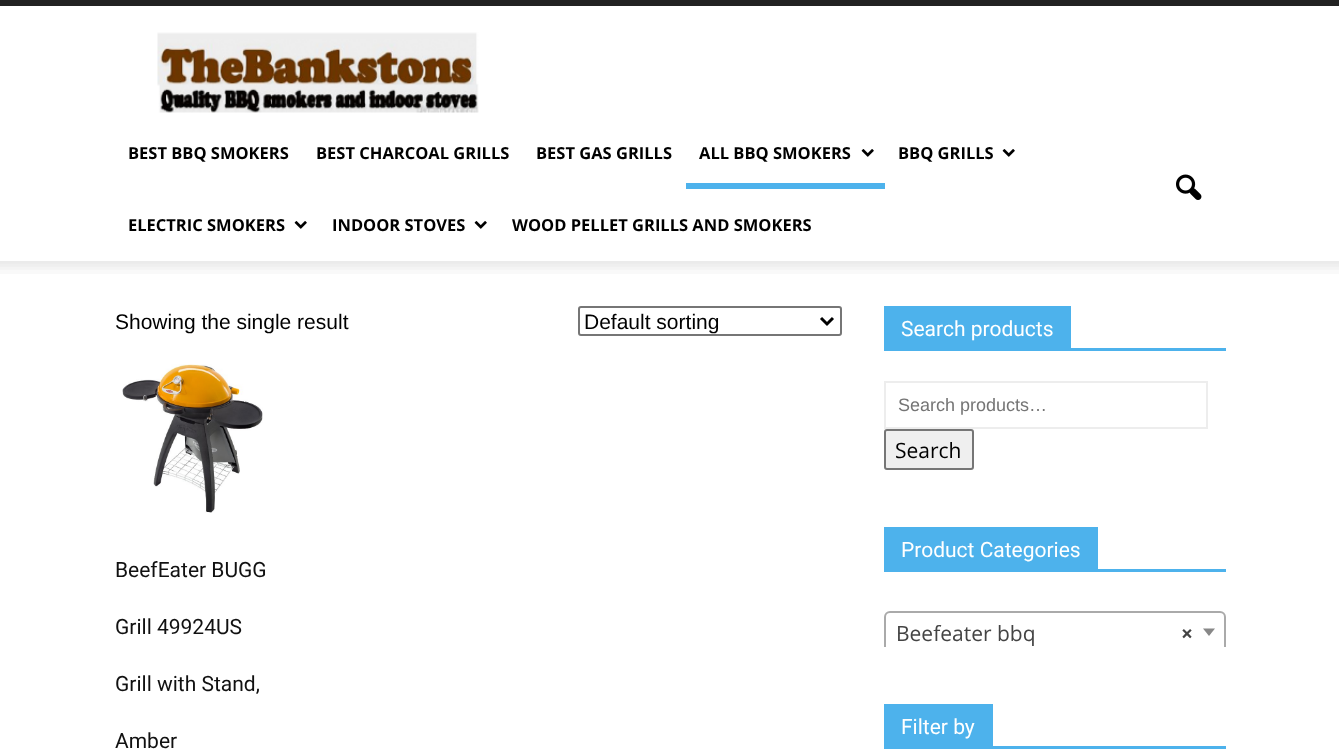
<!DOCTYPE html>
<meta charset="utf-8">
<style>body { margin: 0 } canvas { display: block }</style>
<canvas id="canvas" width="1339" height="751"></canvas>
<script type="module">
  const canvas = document.getElementById("canvas");
  const ctx = canvas.getContext("2d");
  ctx.miterLimit = 4;
  ctx.fontKerning = "normal";
  async function loadImage(src) {
    const img = new Image();
    img.src = src;
    await img.decode();
    return img;
  }

  ctx.fillStyle = "#ffffff";
  ctx.fillRect(0, 0, 1339, 751);
  ctx.fillStyle = "#222222";
  ctx.fillRect(0, 0, 1339, 6);
  ctx.drawImage(await loadImage("img1.png"), 157, 32, 322, 81);
  ctx.font = "bold 16.5px Open Sans";
  ctx.fillStyle = "#000000";
  ctx.fillText("BEST BBQ SMOKERS", 128, 159);
  ctx.fillText("BEST CHARCOAL GRILLS", 316, 159);
  ctx.fillText("BEST GAS GRILLS", 536, 159);
  ctx.fillText("ALL BBQ SMOKERS", 699, 159);
  ctx.drawImage(await loadImage("img2.png"), 861, 149, 13, 8);
  ctx.fillStyle = "#4db2ec";
  ctx.fillRect(686, 183, 199, 6);
  ctx.fillStyle = "#000000";
  ctx.fillText("BBQ GRILLS", 898, 159);
  ctx.drawImage(await loadImage("img2.png"), 1002, 149, 13, 8);
  ctx.fillText("ELECTRIC SMOKERS", 128, 231);
  ctx.drawImage(await loadImage("img2.png"), 294, 221, 13, 8);
  ctx.fillText("INDOOR STOVES", 332, 231);
  ctx.drawImage(await loadImage("img2.png"), 474, 221, 13, 8);
  ctx.fillText("WOOD PELLET GRILLS AND SMOKERS", 512, 231);
  ctx.drawImage(await loadImage("img3.png"), 1176, 174, 26, 26);
  ctx.drawImage(await loadImage("img4.png"), 0, 261, 1339, 13);
  ctx.font = "21px Liberation Sans";
  ctx.fillText("Showing the single result", 115, 329);
  ctx.beginPath();
  ctx.roundRect(579, 307, 262, 28, 2);
  ctx.strokeStyle = "#767676";
  ctx.lineWidth = 2;
  ctx.stroke();
  ctx.beginPath();
  ctx.moveTo(821, 318);
  ctx.lineTo(827, 324);
  ctx.lineTo(833, 318);
  ctx.strokeStyle = "#000000";
  ctx.lineWidth = 3;
  ctx.stroke();
  ctx.fillText("Default sorting", 584, 329);
  ctx.drawImage(await loadImage("img5.png"), 122, 364, 141, 149);
  ctx.font = "21px Roboto";
  ctx.fillStyle = "#111111";
  ctx.fillText("BeefEater BUGG", 115, 577);
  ctx.fillText("Grill 49924US", 115, 634);
  ctx.fillText("Grill with Stand,", 115, 691);
  ctx.fillText("Amber", 115, 748);
  ctx.fillStyle = "#4db2ec";
  ctx.fillRect(884, 348, 342, 3);
  ctx.fillRect(884, 306, 187, 42);
  ctx.fillStyle = "#ffffff";
  ctx.fillText("Search products", 901, 336);
  ctx.strokeStyle = "#ededed";
  ctx.lineWidth = 2;
  ctx.strokeRect(885, 382, 322, 46);
  ctx.font = "18px Liberation Sans";
  ctx.fillStyle = "#757575";
  ctx.fillText("Search products…", 898, 411);
  ctx.fillStyle = "#efefef";
  ctx.beginPath();
  ctx.roundRect(885, 430, 88, 39, 2);
  ctx.fill();
  ctx.strokeStyle = "#767676";
  ctx.stroke();
  ctx.font = "21px Open Sans";
  ctx.fillStyle = "#000000";
  ctx.fillText("Search", 895, 458);
  ctx.fillStyle = "#4db2ec";
  ctx.fillRect(884, 569, 342, 3);
  ctx.fillRect(884, 527, 214, 42);
  ctx.font = "21px Roboto";
  ctx.fillStyle = "#ffffff";
  ctx.fillText("Product Categories", 901, 557);
  ctx.save();
  ctx.beginPath();
  ctx.rect(884, 527, 342, 120);
  ctx.clip();
  ctx.beginPath();
  ctx.roundRect(885, 612, 340, 40, 5);
  ctx.strokeStyle = "#aaaaaa";
  ctx.stroke();
  ctx.restore();
  ctx.font = "21px Open Sans";
  ctx.fillStyle = "#444444";
  ctx.fillText("Beefeater bbq", 896, 641);
  ctx.font = "bold 21px Open Sans";
  ctx.fillText("×", 1181, 641);
  ctx.fillStyle = "#888888";
  ctx.beginPath();
  ctx.moveTo(1203, 628.5);
  ctx.lineTo(1215, 628.5);
  ctx.lineTo(1209, 636);
  ctx.closePath();
  ctx.fill();
  ctx.fillStyle = "#4db2ec";
  ctx.fillRect(884, 746, 342, 3);
  ctx.fillRect(884, 704, 109, 42);
  ctx.font = "21px Roboto";
  ctx.fillStyle = "#ffffff";
  ctx.fillText("Filter by", 901, 734);
</script>
